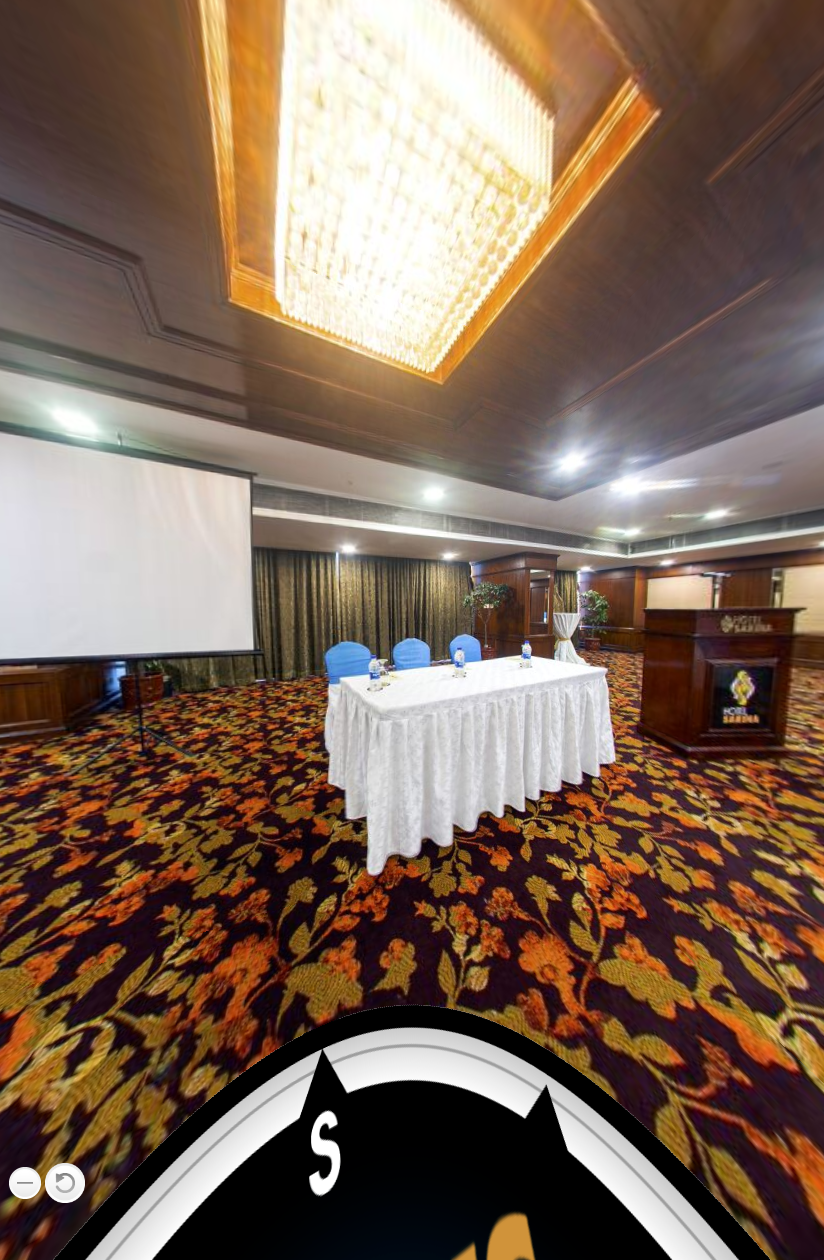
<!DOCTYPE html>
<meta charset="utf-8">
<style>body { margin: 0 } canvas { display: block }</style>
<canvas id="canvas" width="824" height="1260"></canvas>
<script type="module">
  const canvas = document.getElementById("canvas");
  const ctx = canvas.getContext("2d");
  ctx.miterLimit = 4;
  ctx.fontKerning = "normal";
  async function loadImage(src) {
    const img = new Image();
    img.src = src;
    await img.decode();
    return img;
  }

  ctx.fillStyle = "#ffffff";
  ctx.fillRect(0, 0, 824, 1260);
  ctx.drawImage(await loadImage("img1.png"), 0, 0, 824, 1260);
  ctx.drawImage(await loadImage("img2.png"), 9, 1167, 32, 32);
  ctx.drawImage(await loadImage("img3.png"), 45, 1163, 40, 40);
</script>
